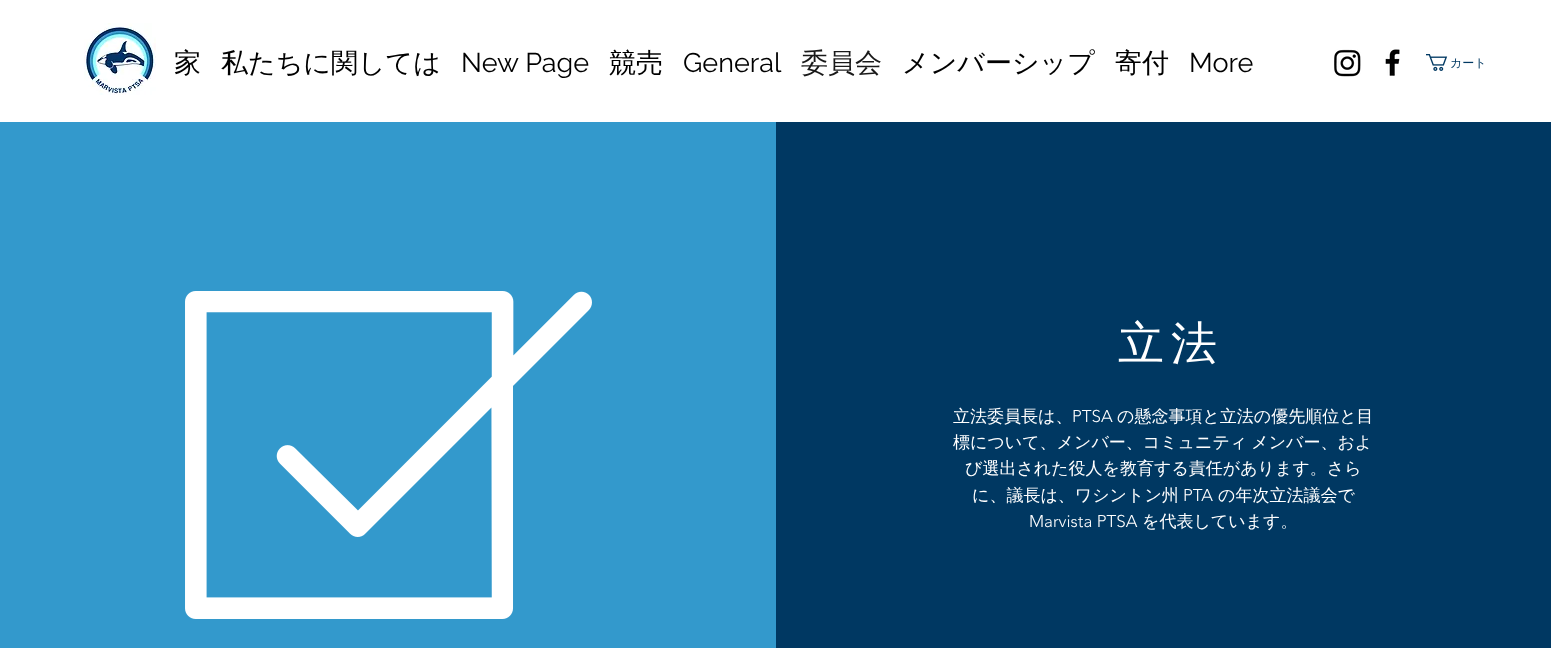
<!DOCTYPE html>
<meta charset="utf-8">
<style>body { margin: 0 } canvas { display: block }</style>
<canvas id="canvas" width="1551" height="648"></canvas>
<script type="module">
  const canvas = document.getElementById("canvas");
  const ctx = canvas.getContext("2d");
  ctx.miterLimit = 4;
  ctx.fontKerning = "normal";
  async function loadImage(src) {
    const img = new Image();
    img.src = src;
    await img.decode();
    return img;
  }

  ctx.fillStyle = "#ffffff";
  ctx.fillRect(0, 0, 1551, 648);
  ctx.drawImage(await loadImage("img1.png"), 84, 23, 72, 72);
  ctx.font = "500 27px WenQuanYi Zen Hei";
  ctx.fillStyle = "#000000";
  ctx.fillText("家", 174, 72);
  ctx.fillText("私たちに関しては", 221, 72);
  ctx.font = "27px Raleway";
  ctx.fillText("New Page", 461, 72);
  ctx.font = "500 27px WenQuanYi Zen Hei";
  ctx.fillText("競売", 609, 72);
  ctx.font = "27px Raleway";
  ctx.fillText("General", 683, 72);
  ctx.font = "500 27px WenQuanYi Zen Hei";
  ctx.fillStyle = "#191919";
  ctx.fillText("委員会", 801, 72);
  ctx.fillStyle = "#000000";
  ctx.fillText("メンバーシップ", 902, 72);
  ctx.fillText("寄付", 1115, 72);
  ctx.font = "27px Raleway";
  ctx.fillText("More", 1189, 72);
  ctx.drawImage(await loadImage("img2.png"), 1334, 49, 27, 28);
  ctx.drawImage(await loadImage("img3.png"), 1385, 49, 15, 27);
  ctx.drawImage(await loadImage("img4.png"), 1426, 54, 22, 17);
  ctx.font = "500 12px WenQuanYi Zen Hei";
  ctx.fillStyle = "#003862";
  ctx.fillText("カート", 1450, 67);
  ctx.fillStyle = "#3399cc";
  ctx.fillRect(0, 122, 776, 526);
  ctx.drawImage(await loadImage("img5.png"), 185, 291, 407, 328);
  ctx.fillStyle = "#003862";
  ctx.fillRect(776, 122, 775, 526);
  ctx.letterSpacing = "7px";
  ctx.font = "500 46px WenQuanYi Zen Hei";
  ctx.fillStyle = "#ffffff";
  ctx.fillText("立法", 1118, 359);
  ctx.letterSpacing = "0px";
  ctx.font = "500 17px WenQuanYi Zen Hei";
  ctx.fillText("立法委員長は、", 953, 422);
  ctx.font = "300 17px 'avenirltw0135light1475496'";
  ctx.fillText("PTSA", 1072, 422);
  ctx.font = "500 17px WenQuanYi Zen Hei";
  ctx.fillText("の懸念事項と立法の優先順位と目", 1117, 422);
  ctx.wordSpacing = "-1px";
  ctx.fillText("標について、メンバー、コミュニティ メンバー、およ", 953, 448);
  ctx.wordSpacing = "0px";
  ctx.fillText("び選出された役人を教育する責任があります。さら", 965, 474);
  ctx.fillText("に、議長は、ワシントン州", 972, 501);
  ctx.font = "300 17px 'avenirltw0135light1475496'";
  ctx.fillText("PTA", 1183, 501);
  ctx.font = "500 17px WenQuanYi Zen Hei";
  ctx.fillText("の年次立法議会で", 1218, 501);
  ctx.font = "300 17px 'avenirltw0135light1475496'";
  ctx.fillText("Marvista PTSA", 1029, 527);
  ctx.font = "500 17px WenQuanYi Zen Hei";
  ctx.fillText("を代表しています。", 1142, 527);
</script>
